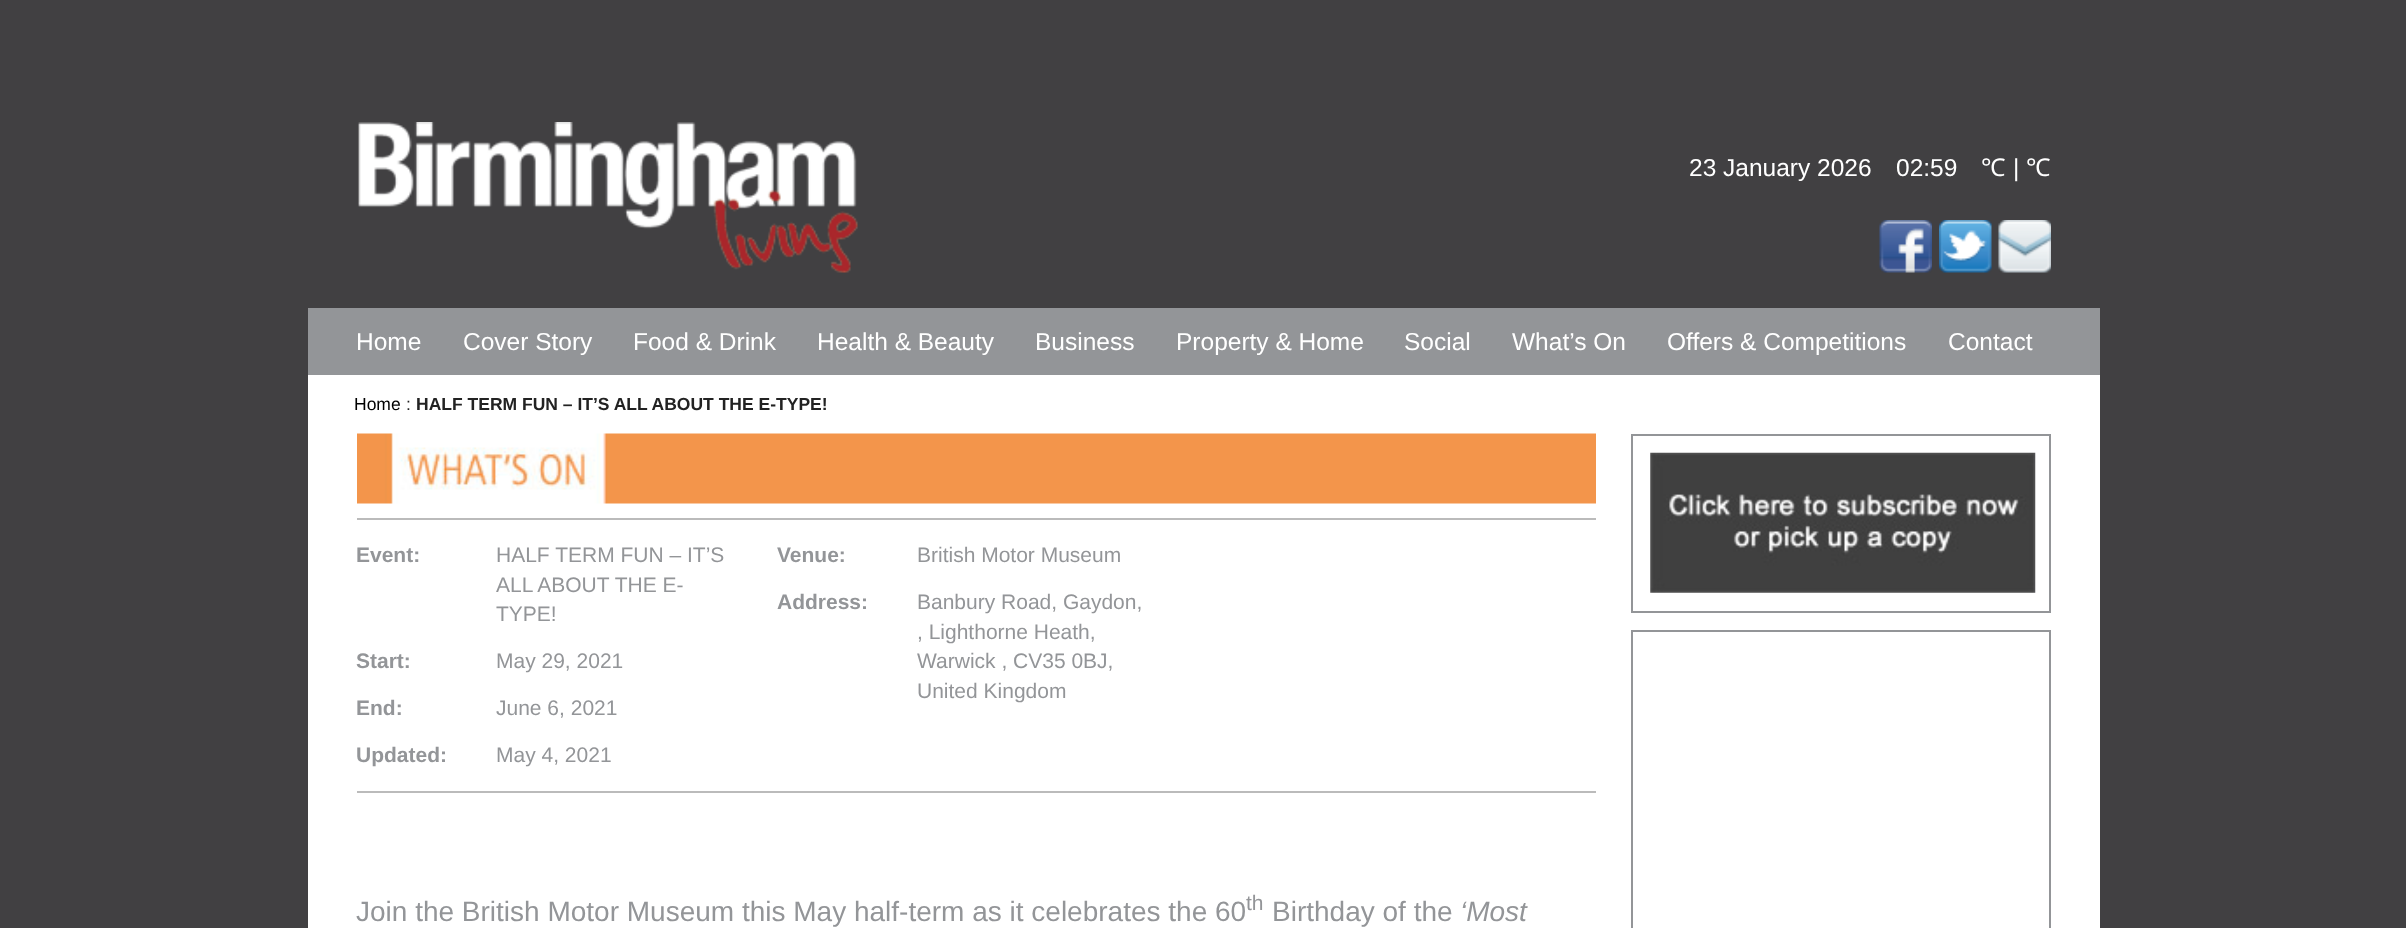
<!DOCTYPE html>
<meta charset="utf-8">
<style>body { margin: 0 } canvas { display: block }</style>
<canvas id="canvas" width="2406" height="928"></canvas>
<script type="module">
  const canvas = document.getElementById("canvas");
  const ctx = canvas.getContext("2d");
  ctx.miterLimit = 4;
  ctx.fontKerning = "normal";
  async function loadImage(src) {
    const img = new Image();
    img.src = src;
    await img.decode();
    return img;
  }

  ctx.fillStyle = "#414042";
  ctx.fillRect(0, 0, 2406, 928);
  ctx.drawImage(await loadImage("img1.png"), 358, 122, 500, 151);
  ctx.font = "24.5px Liberation Sans";
  ctx.fillStyle = "#ffffff";
  ctx.fillText("23 January 2026", 1689, 176);
  ctx.fillText("02:59", 1896, 176);
  ctx.font = "24.5px Noto Sans";
  ctx.fillText("℃", 1981, 176);
  ctx.font = "24.5px Liberation Sans";
  ctx.fillText("|", 2013, 176);
  ctx.font = "24.5px Noto Sans";
  ctx.fillText("℃", 2026, 176);
  ctx.drawImage(await loadImage("img2.png"), 1879, 220, 53, 53);
  ctx.drawImage(await loadImage("img3.png"), 1939, 220, 53, 53);
  ctx.drawImage(await loadImage("img4.png"), 1998, 220, 53, 53);
  ctx.fillStyle = "#939598";
  ctx.fillRect(308, 308, 1792, 67);
  ctx.font = "24.5px Liberation Sans";
  ctx.fillStyle = "#ffffff";
  ctx.fillText("Home", 356, 350);
  ctx.fillText("Cover Story", 463, 350);
  ctx.fillText("Food & Drink", 633, 350);
  ctx.fillText("Health & Beauty", 817, 350);
  ctx.fillText("Business", 1035, 350);
  ctx.fillText("Property & Home", 1176, 350);
  ctx.fillText("Social", 1404, 350);
  ctx.fillText("What’s On", 1512, 350);
  ctx.fillText("Offers & Competitions", 1667, 350);
  ctx.fillText("Contact", 1948, 350);
  ctx.fillRect(308, 375, 1792, 553);
  ctx.font = "17.5px Liberation Sans";
  ctx.fillStyle = "#000000";
  ctx.fillText("Home", 354, 410);
  ctx.fillStyle = "#222222";
  ctx.fillText(":", 406, 410);
  ctx.font = "bold 17.5px Liberation Sans";
  ctx.fillText("HALF TERM FUN – IT’S ALL ABOUT THE E-TYPE!", 416, 410);
  ctx.drawImage(await loadImage("img5.png"), 357, 433, 1239, 71);
  ctx.fillStyle = "#bbbbbb";
  ctx.fillRect(357, 518, 1239, 2);
  ctx.fillRect(357, 791, 1239, 2);
  ctx.font = "bold 21px Liberation Sans";
  ctx.fillStyle = "#939598";
  ctx.fillText("Event:", 356, 562);
  ctx.font = "21px Liberation Sans";
  ctx.fillText("HALF TERM FUN – IT’S", 496, 562);
  ctx.fillText("ALL ABOUT THE E-", 496, 592);
  ctx.fillText("TYPE!", 496, 621);
  ctx.font = "bold 21px Liberation Sans";
  ctx.fillText("Start:", 356, 668);
  ctx.font = "21px Liberation Sans";
  ctx.fillText("May 29, 2021", 496, 668);
  ctx.font = "bold 21px Liberation Sans";
  ctx.fillText("End:", 356, 715);
  ctx.font = "21px Liberation Sans";
  ctx.fillText("June 6, 2021", 496, 715);
  ctx.font = "bold 21px Liberation Sans";
  ctx.fillText("Updated:", 356, 762);
  ctx.font = "21px Liberation Sans";
  ctx.fillText("May 4, 2021", 496, 762);
  ctx.font = "bold 21px Liberation Sans";
  ctx.fillText("Venue:", 777, 562);
  ctx.font = "21px Liberation Sans";
  ctx.fillText("British Motor Museum", 917, 562);
  ctx.font = "bold 21px Liberation Sans";
  ctx.fillText("Address:", 777, 609);
  ctx.font = "21px Liberation Sans";
  ctx.fillText("Banbury Road, Gaydon,", 917, 609);
  ctx.fillText(", Lighthorne Heath,", 917, 639);
  ctx.fillText("Warwick , CV35 0BJ,", 917, 668);
  ctx.fillText("United Kingdom", 917, 698);
  ctx.font = "28px Liberation Sans";
  ctx.fillText("Join the British Motor Museum this May half-term as it celebrates the 60", 356, 921);
  ctx.font = "21px Liberation Sans";
  ctx.fillText("th", 1246, 910);
  ctx.font = "28px Liberation Sans";
  ctx.fillText("Birthday of the", 1272, 921);
  ctx.font = "italic 28px Liberation Sans";
  ctx.fillText("‘Most", 1460, 921);
  ctx.strokeStyle = "#939598";
  ctx.lineWidth = 2;
  ctx.strokeRect(1632, 435, 418, 177);
  ctx.drawImage(await loadImage("img6.png"), 1650, 452, 386, 141);
  ctx.strokeRect(1632, 631, 418, 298);
</script>
